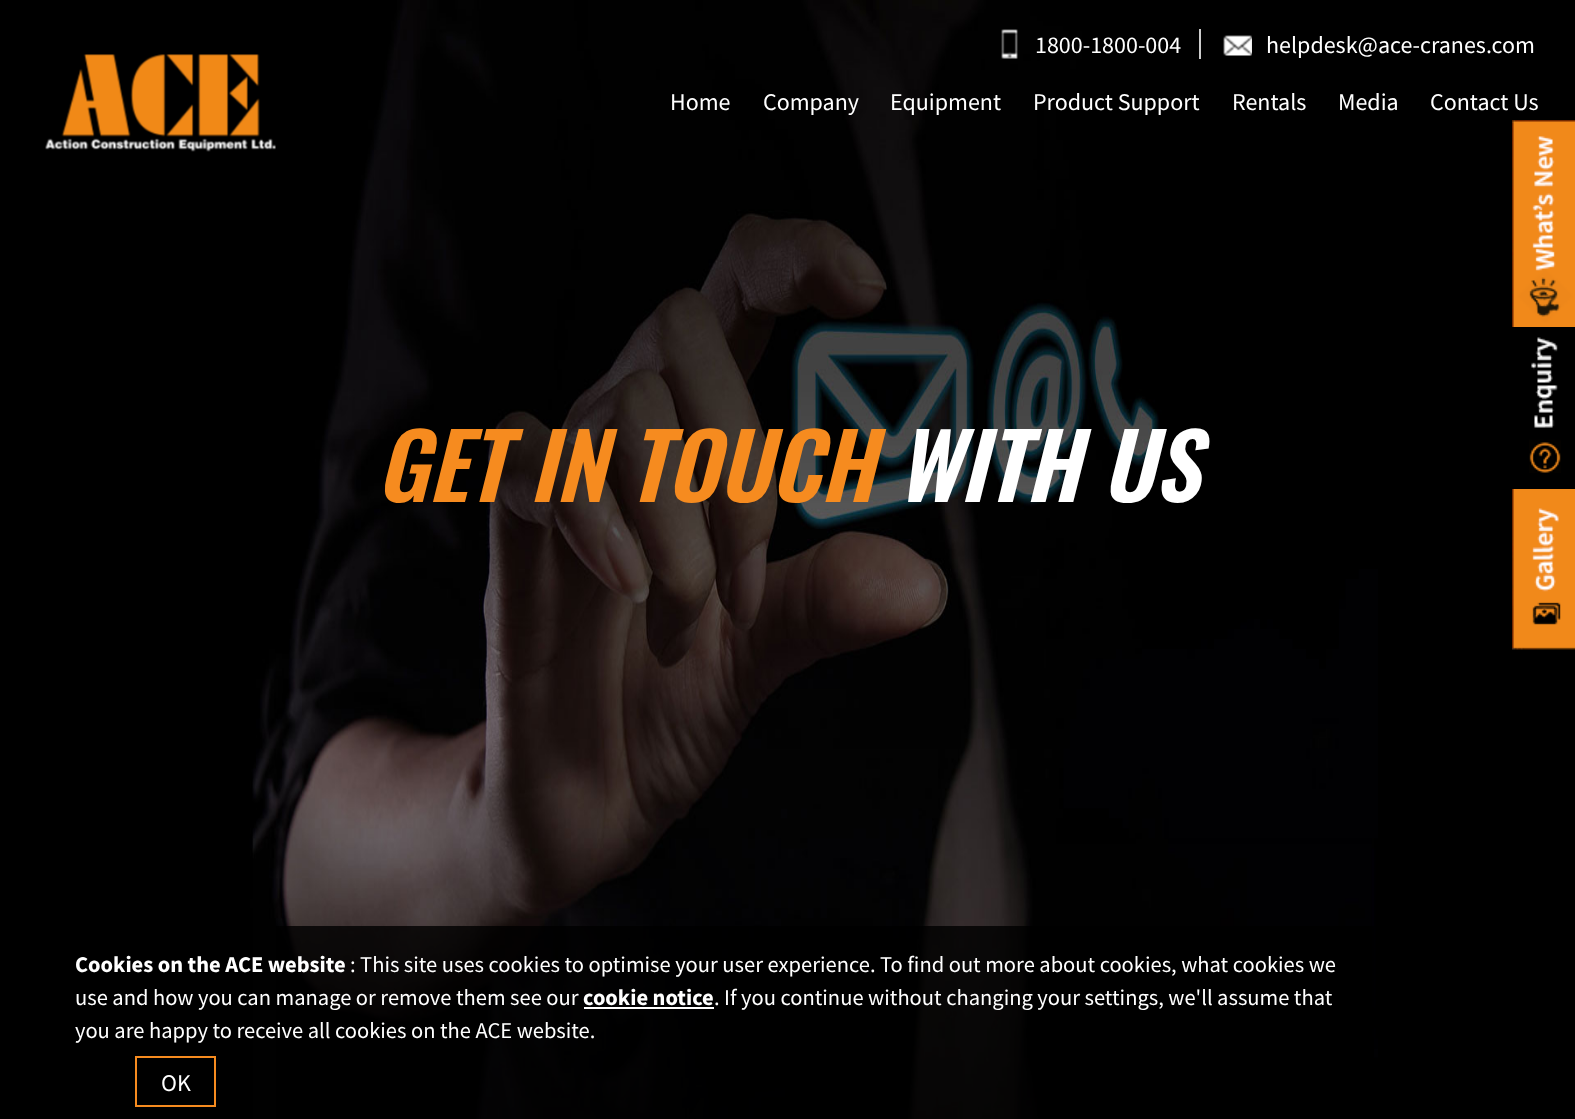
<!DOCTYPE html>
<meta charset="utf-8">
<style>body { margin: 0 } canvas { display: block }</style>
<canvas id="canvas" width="1575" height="1119"></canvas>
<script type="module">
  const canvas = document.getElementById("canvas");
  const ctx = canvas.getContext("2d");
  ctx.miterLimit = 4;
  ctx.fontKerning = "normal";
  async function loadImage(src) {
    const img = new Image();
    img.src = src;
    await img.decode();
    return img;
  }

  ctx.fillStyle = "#ffffff";
  ctx.fillRect(0, 0, 1575, 1119);
  ctx.drawImage(await loadImage("img4.png"), 0, 0, 1575, 1119);
  ctx.drawImage(await loadImage("img1.png"), 45, 54, 231, 98);
  ctx.drawImage(await loadImage("img2.png"), 1001, 29, 17, 30);
  ctx.font = "24px Source Sans Pro";
  ctx.fillText("1800-1800-004", 1035, 53);
  ctx.fillStyle = "#cccccc";
  ctx.fillRect(1199, 29, 2, 30);
  ctx.drawImage(await loadImage("img3.png"), 1223, 35, 29, 21);
  ctx.fillStyle = "#ffffff";
  ctx.fillText("helpdesk@ace-cranes.com", 1266, 53);
  ctx.fillText("Home", 670, 110);
  ctx.fillText("Company", 763, 110);
  ctx.fillText("Equipment", 890, 110);
  ctx.fillText("Product Support", 1033, 110);
  ctx.fillText("Rentals", 1232, 110);
  ctx.fillText("Media", 1338, 110);
  ctx.fillText("Contact Us", 1430, 110);
  ctx.fillStyle = "rgba(0, 0, 0, 0.8)";
  ctx.fillRect(276, 926, 1098, 193);
  ctx.font = "bold 22.5px Source Sans Pro";
  ctx.fillStyle = "#ffffff";
  ctx.fillText("Cookies on the ACE website", 75, 972);
  ctx.font = "22.5px Source Sans Pro";
  ctx.fillText(": This site uses cookies to optimise your user experience. To find out more about cookies, what cookies we", 350, 972);
  ctx.fillText("use and how you can manage or remove them see our", 75, 1005);
  ctx.font = "bold 22.5px Source Sans Pro";
  ctx.fillText("cookie notice", 583, 1005);
  ctx.fillRect(584, 1007, 130, 2);
  ctx.font = "22.5px Source Sans Pro";
  ctx.fillText(". If you continue without changing your settings, we'll assume that", 714, 1005);
  ctx.fillText("you are happy to receive all cookies on the ACE website.", 75, 1038);
  ctx.strokeStyle = "#f68b1f";
  ctx.lineWidth = 2;
  ctx.strokeRect(136, 1057, 79, 49);
  ctx.font = "24px Source Sans Pro";
  ctx.fillText("OK", 161, 1091);
  ctx.font = "italic 600 90px Oswald";
  ctx.fillStyle = "#f68b1f";
  ctx.fillText("GET IN TOUCH", 376, 502);
  ctx.fillStyle = "#ffffff";
  ctx.fillText("WITH US", 896, 502);
  ctx.drawImage(await loadImage("img5.png"), 1512, 120, 63, 207);
  ctx.drawImage(await loadImage("img6.png"), 1529, 337, 32, 136);
  ctx.drawImage(await loadImage("img7.png"), 1512, 489, 63, 161);
</script>
